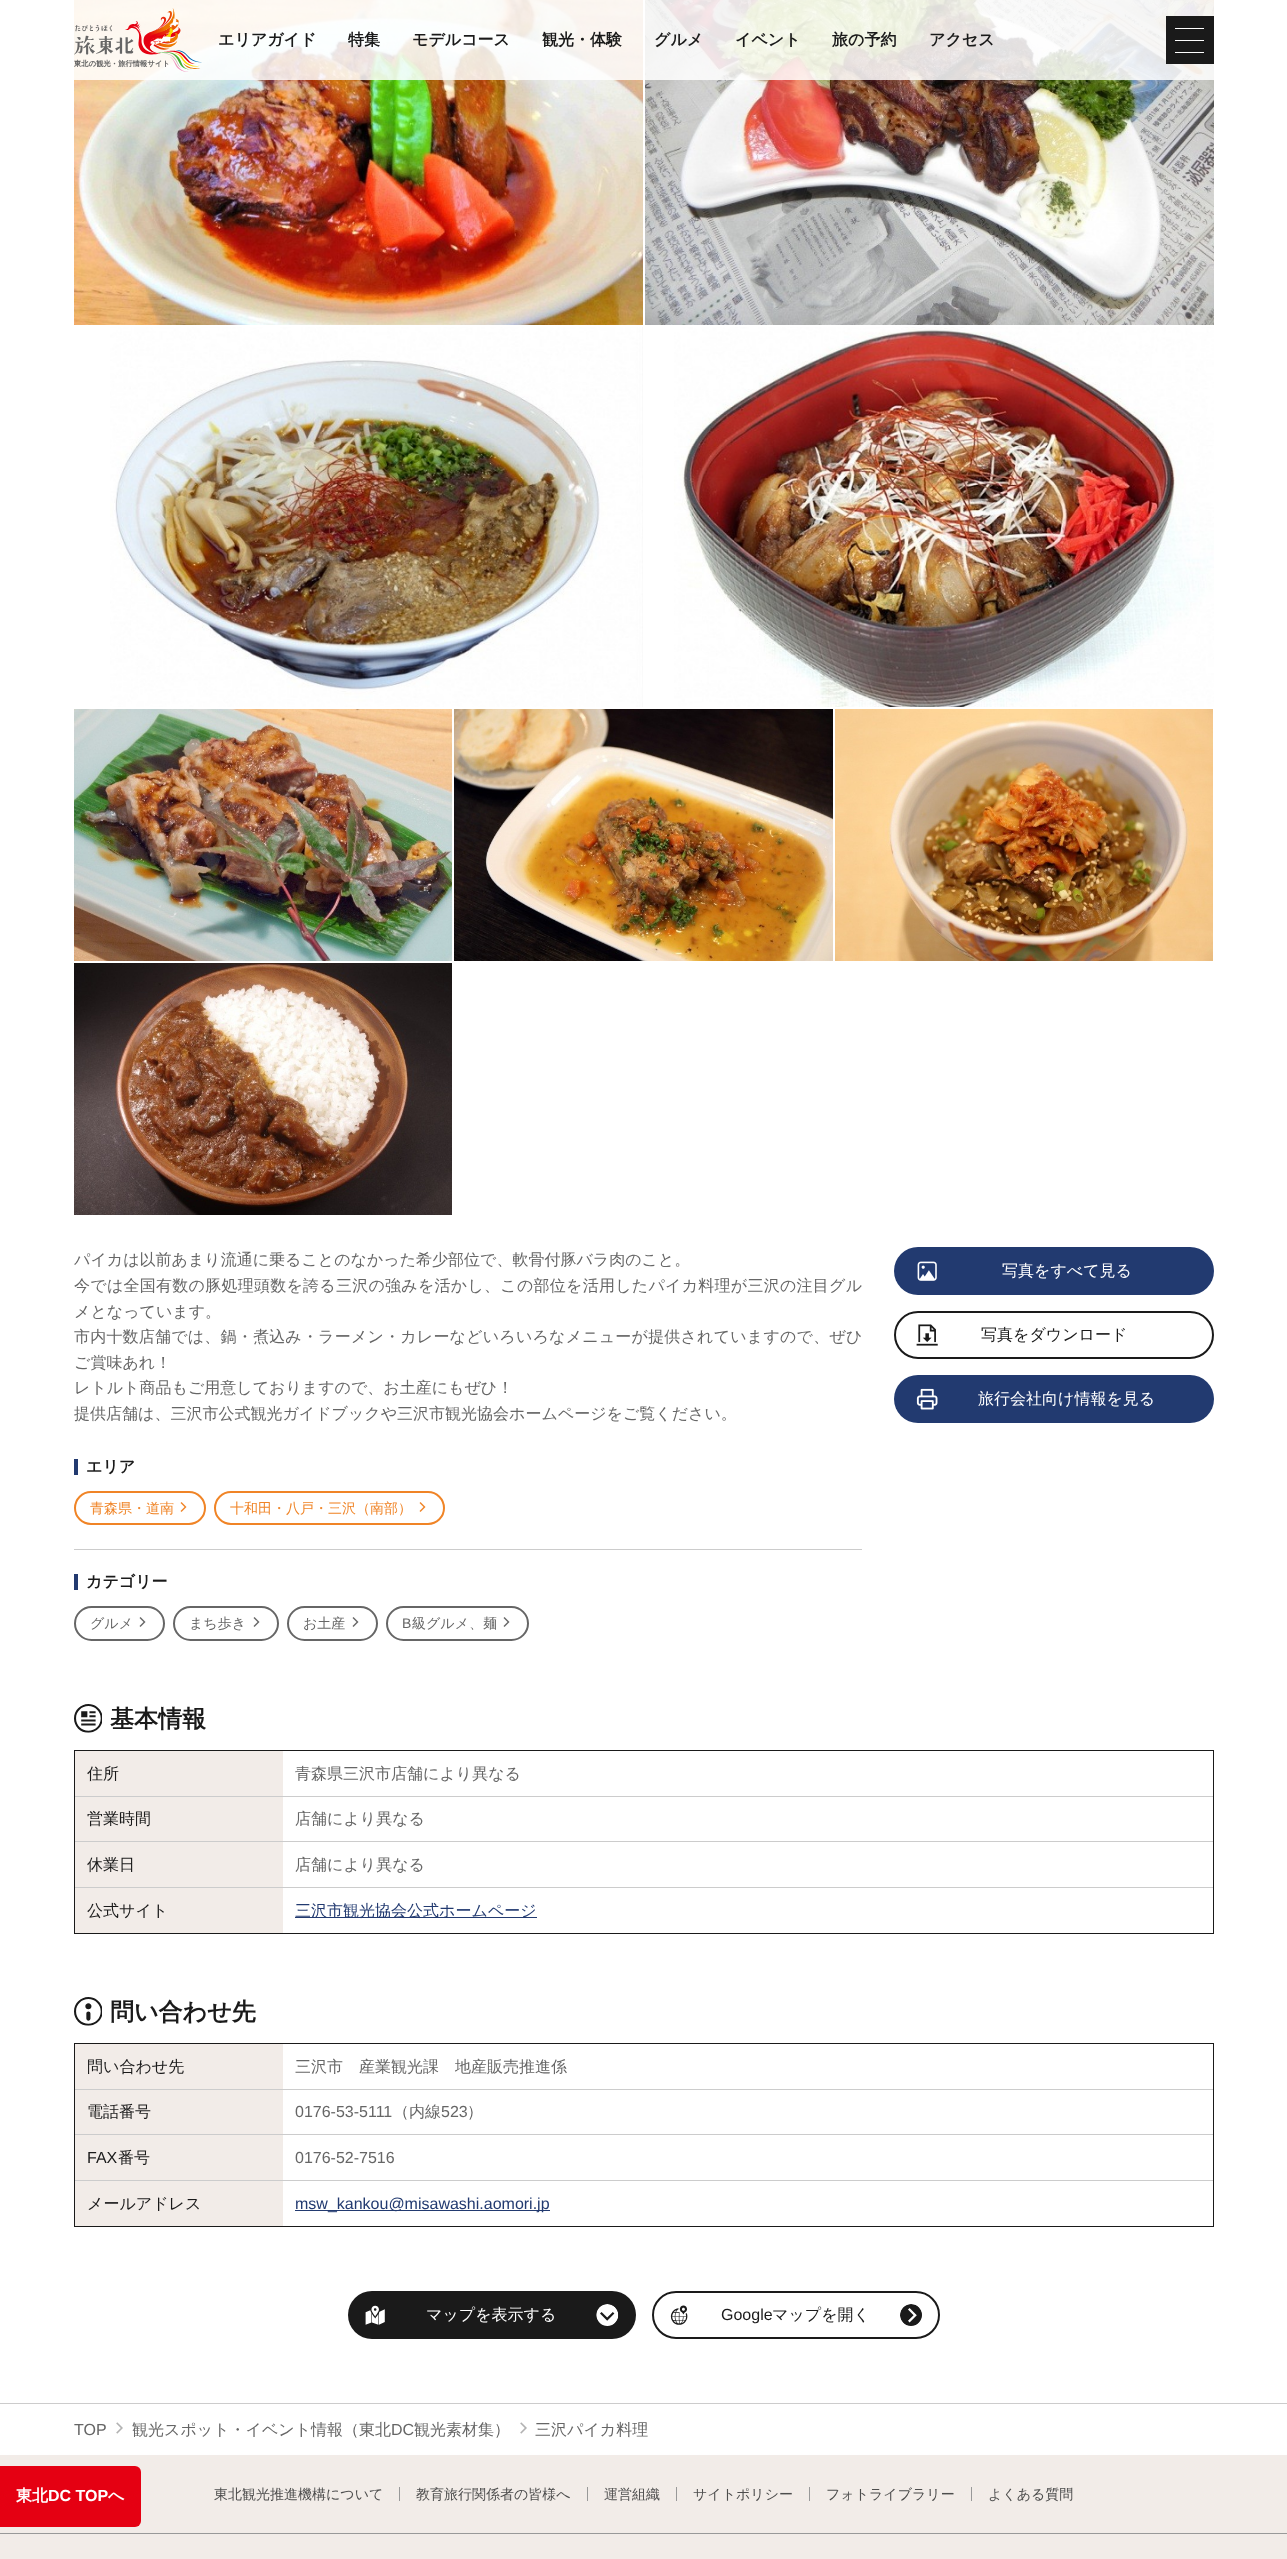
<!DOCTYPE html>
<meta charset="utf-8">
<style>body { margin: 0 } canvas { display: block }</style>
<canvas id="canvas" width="1287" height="2559"></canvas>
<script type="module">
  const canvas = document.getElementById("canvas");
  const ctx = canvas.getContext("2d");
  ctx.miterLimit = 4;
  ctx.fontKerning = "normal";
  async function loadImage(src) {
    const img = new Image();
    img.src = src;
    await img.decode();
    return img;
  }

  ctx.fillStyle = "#ffffff";
  ctx.fillRect(0, 0, 1287, 2559);
  ctx.drawImage(await loadImage("img2.png"), 74, 0, 569, 325);
  ctx.drawImage(await loadImage("img3.png"), 645, 0, 569, 325);
  ctx.fillStyle = "rgba(255, 255, 255, 0.85)";
  ctx.fillRect(74, 0, 1140, 80);
  ctx.drawImage(await loadImage("img1.png"), 74, 8, 128, 64);
  ctx.fillStyle = "#1a1a1a";
  ctx.fillRect(1166, 16, 48, 48);
  ctx.fillStyle = "#ffffff";
  ctx.fillRect(1175, 28, 29, 1);
  ctx.fillRect(1175, 40, 29, 1);
  ctx.fillRect(1175, 52, 29, 1);
  ctx.font = "bold 16px WenQuanYi Zen Hei";
  ctx.fillStyle = "#1a1a1a";
  ctx.fillText("エリアガイド", 218, 45);
  ctx.fillText("特集", 348, 45);
  ctx.fillText("モデルコース", 412, 45);
  ctx.fillText("観光・体験", 542, 45);
  ctx.fillText("グルメ", 654, 45);
  ctx.fillText("イベント", 735, 45);
  ctx.fillText("旅の予約", 832, 45);
  ctx.fillText("アクセス", 929, 45);
  ctx.drawImage(await loadImage("img4.png"), 110, 327, 533, 380);
  ctx.drawImage(await loadImage("img5.png"), 674, 327, 540, 380);
  ctx.drawImage(await loadImage("img6.png"), 74, 709, 378, 252);
  ctx.drawImage(await loadImage("img7.png"), 454, 709, 379, 252);
  ctx.drawImage(await loadImage("img8.png"), 835, 709, 378, 252);
  ctx.drawImage(await loadImage("img9.png"), 74, 963, 378, 252);
  ctx.font = "500 16px WenQuanYi Zen Hei";
  ctx.fillStyle = "#666666";
  ctx.fillText("パイカは以前あまり流通に乗ることのなかった希少部位で、軟骨付豚バラ肉のこと。", 74, 1265);
  ctx.letterSpacing = "0.25px";
  ctx.fillText("今では全国有数の豚処理頭数を誇る三沢の強みを活かし、この部位を活用したパイカ料理が三沢の注目グル", 74, 1291);
  ctx.letterSpacing = "0px";
  ctx.fillText("メとなっています。", 74, 1317);
  ctx.letterSpacing = "0.2px";
  ctx.fillText("市内十数店舗では、鍋・煮込み・ラーメン・カレーなどいろいろなメニューが提供されていますので、ぜひ", 74, 1342);
  ctx.letterSpacing = "0px";
  ctx.fillText("ご賞味あれ！", 74, 1368);
  ctx.fillText("レトルト商品もご用意しておりますので、お土産にもぜひ！", 74, 1393);
  ctx.fillText("提供店舗は、三沢市公式観光ガイドブックや三沢市観光協会ホームページをご覧ください。", 74, 1419);
  ctx.fillStyle = "#223a70";
  ctx.fillRect(74, 1459, 4, 16);
  ctx.font = "bold 16px WenQuanYi Zen Hei";
  ctx.fillStyle = "#1a1a1a";
  ctx.fillText("エリア", 86, 1472);
  ctx.beginPath();
  ctx.roundRect(75, 1492, 130, 32, 16);
  ctx.strokeStyle = "#f08426";
  ctx.lineWidth = 2;
  ctx.stroke();
  ctx.font = "500 14px WenQuanYi Zen Hei";
  ctx.fillStyle = "#f08426";
  ctx.fillText("青森県・道南", 90, 1513);
  ctx.drawImage(await loadImage("img10.png"), 180, 1502, 7, 10);
  ctx.beginPath();
  ctx.roundRect(215, 1492, 229, 32, 16);
  ctx.stroke();
  ctx.fillText("十和田・八戸・三沢（南部）", 230, 1513);
  ctx.drawImage(await loadImage("img10.png"), 419, 1502, 7, 10);
  ctx.fillStyle = "#cccccc";
  ctx.fillRect(74, 1549, 788, 1);
  ctx.fillStyle = "#223a70";
  ctx.fillRect(74, 1574, 4, 16);
  ctx.font = "bold 16px WenQuanYi Zen Hei";
  ctx.fillStyle = "#1a1a1a";
  ctx.fillText("カテゴリー", 86, 1587);
  ctx.beginPath();
  ctx.roundRect(75, 1607, 89, 33, 16.5);
  ctx.strokeStyle = "#666666";
  ctx.stroke();
  ctx.font = "500 14px WenQuanYi Zen Hei";
  ctx.fillStyle = "#666666";
  ctx.fillText("グルメ", 90, 1628);
  ctx.drawImage(await loadImage("img11.png"), 139, 1617, 7, 10);
  ctx.beginPath();
  ctx.roundRect(174, 1607, 104, 33, 16.5);
  ctx.stroke();
  ctx.fillText("まち歩き", 189, 1628);
  ctx.drawImage(await loadImage("img11.png"), 253, 1617, 7, 10);
  ctx.beginPath();
  ctx.roundRect(288, 1607, 89, 33, 16.5);
  ctx.stroke();
  ctx.fillText("お土産", 303, 1628);
  ctx.drawImage(await loadImage("img11.png"), 352, 1617, 7, 10);
  ctx.beginPath();
  ctx.roundRect(387, 1607, 141, 33, 16.5);
  ctx.stroke();
  ctx.font = "14px Liberation Sans";
  ctx.fillText("B", 402, 1628);
  ctx.font = "500 14px WenQuanYi Zen Hei";
  ctx.fillText("級グルメ、麺", 412, 1628);
  ctx.drawImage(await loadImage("img11.png"), 503, 1617, 7, 10);
  ctx.fillStyle = "#223a70";
  ctx.beginPath();
  ctx.roundRect(894, 1247, 320, 48, 24);
  ctx.fill();
  ctx.drawImage(await loadImage("img12.png"), 917, 1261, 20, 20);
  ctx.font = "500 16px WenQuanYi Zen Hei";
  ctx.fillStyle = "#ffffff";
  ctx.fillText("写真をすべて見る", 1002, 1276);
  ctx.beginPath();
  ctx.roundRect(895, 1312, 318, 46, 23);
  ctx.strokeStyle = "#1a1a1a";
  ctx.stroke();
  ctx.drawImage(await loadImage("img13.png"), 916, 1324, 22, 22);
  ctx.fillStyle = "#1a1a1a";
  ctx.fillText("写真をダウンロード", 981, 1340);
  ctx.fillStyle = "#223a70";
  ctx.beginPath();
  ctx.roundRect(894, 1375, 320, 48, 24);
  ctx.fill();
  ctx.drawImage(await loadImage("img14.png"), 916, 1388, 22, 22);
  ctx.fillStyle = "#ffffff";
  ctx.fillText("旅行会社向け情報を見る", 978, 1404);
  ctx.drawImage(await loadImage("img15.png"), 74, 1704, 28, 29);
  ctx.font = "bold 24px WenQuanYi Zen Hei";
  ctx.fillStyle = "#1a1a1a";
  ctx.fillText("基本情報", 110, 1727);
  ctx.lineWidth = 1;
  ctx.strokeRect(74.5, 1750.5, 1139, 183);
  ctx.fillStyle = "#f2ece8";
  ctx.fillRect(75, 1751, 208, 45);
  ctx.font = "500 16px WenQuanYi Zen Hei";
  ctx.fillStyle = "#1a1a1a";
  ctx.fillText("住所", 87, 1779);
  ctx.fillStyle = "#666666";
  ctx.fillText("青森県三沢市店舗により異なる", 295, 1779);
  ctx.fillStyle = "#f2ece8";
  ctx.fillRect(75, 1797, 208, 44);
  ctx.fillStyle = "#cccccc";
  ctx.fillRect(75, 1796, 1138, 1);
  ctx.fillStyle = "#1a1a1a";
  ctx.fillText("営業時間", 87, 1824);
  ctx.fillStyle = "#666666";
  ctx.fillText("店舗により異なる", 295, 1824);
  ctx.fillStyle = "#f2ece8";
  ctx.fillRect(75, 1842, 208, 45);
  ctx.fillStyle = "#cccccc";
  ctx.fillRect(75, 1841, 1138, 1);
  ctx.fillStyle = "#1a1a1a";
  ctx.fillText("休業日", 87, 1870);
  ctx.fillStyle = "#666666";
  ctx.fillText("店舗により異なる", 295, 1870);
  ctx.fillStyle = "#f2ece8";
  ctx.fillRect(75, 1888, 208, 45);
  ctx.fillStyle = "#cccccc";
  ctx.fillRect(75, 1887, 1138, 1);
  ctx.fillStyle = "#1a1a1a";
  ctx.fillText("公式サイト", 87, 1916);
  ctx.fillStyle = "#223a70";
  ctx.fillRect(295, 1917, 242, 1);
  ctx.fillText("三沢市観光協会公式ホームページ", 295, 1916);
  ctx.drawImage(await loadImage("img16.png"), 74, 1997, 28, 29);
  ctx.font = "bold 24px WenQuanYi Zen Hei";
  ctx.fillStyle = "#1a1a1a";
  ctx.fillText("問い合わせ先", 110, 2020);
  ctx.strokeRect(74.5, 2043.5, 1139, 183);
  ctx.fillStyle = "#f2ece8";
  ctx.fillRect(75, 2044, 208, 45);
  ctx.font = "500 16px WenQuanYi Zen Hei";
  ctx.fillStyle = "#1a1a1a";
  ctx.fillText("問い合わせ先", 87, 2072);
  ctx.fillStyle = "#666666";
  ctx.fillText("三沢市　産業観光課　地産販売推進係", 295, 2072);
  ctx.fillStyle = "#f2ece8";
  ctx.fillRect(75, 2090, 208, 44);
  ctx.fillStyle = "#cccccc";
  ctx.fillRect(75, 2089, 1138, 1);
  ctx.fillStyle = "#1a1a1a";
  ctx.fillText("電話番号", 87, 2117);
  ctx.font = "16px Liberation Sans";
  ctx.fillStyle = "#666666";
  ctx.fillText("0176-53-5111", 295, 2117);
  ctx.font = "500 16px WenQuanYi Zen Hei";
  ctx.fillText("（内線", 393, 2117);
  ctx.font = "16px Liberation Sans";
  ctx.fillText("523", 441, 2117);
  ctx.font = "500 16px WenQuanYi Zen Hei";
  ctx.fillText("）", 467, 2117);
  ctx.fillStyle = "#f2ece8";
  ctx.fillRect(75, 2135, 208, 45);
  ctx.fillStyle = "#cccccc";
  ctx.fillRect(75, 2134, 1138, 1);
  ctx.font = "16px Liberation Sans";
  ctx.fillStyle = "#1a1a1a";
  ctx.fillText("FAX", 87, 2163);
  ctx.font = "500 16px WenQuanYi Zen Hei";
  ctx.fillText("番号", 118, 2163);
  ctx.font = "16px Liberation Sans";
  ctx.fillStyle = "#666666";
  ctx.fillText("0176-52-7516", 295, 2163);
  ctx.fillStyle = "#f2ece8";
  ctx.fillRect(75, 2181, 208, 45);
  ctx.fillStyle = "#cccccc";
  ctx.fillRect(75, 2180, 1138, 1);
  ctx.font = "500 16px WenQuanYi Zen Hei";
  ctx.fillStyle = "#1a1a1a";
  ctx.fillText("メールアドレス", 87, 2209);
  ctx.fillStyle = "#223a70";
  ctx.fillRect(295, 2210, 255, 1);
  ctx.font = "16px Liberation Sans";
  ctx.fillText("msw_kankou@misawashi.aomori.jp", 295, 2209);
  ctx.fillStyle = "#1a1a1a";
  ctx.beginPath();
  ctx.roundRect(348, 2291, 288, 48, 24);
  ctx.fill();
  ctx.drawImage(await loadImage("img17.png"), 365, 2305, 20, 20);
  ctx.font = "500 16px WenQuanYi Zen Hei";
  ctx.fillStyle = "#ffffff";
  ctx.fillText("マップを表示する", 426, 2320);
  ctx.drawImage(await loadImage("img18.png"), 596, 2304, 23, 22);
  ctx.beginPath();
  ctx.roundRect(653, 2292, 286, 46, 23);
  ctx.lineWidth = 2;
  ctx.stroke();
  ctx.drawImage(await loadImage("img19.png"), 670, 2305, 18, 20);
  ctx.font = "16px Liberation Sans";
  ctx.fillStyle = "#1a1a1a";
  ctx.fillText("Google", 721, 2320);
  ctx.font = "500 16px WenQuanYi Zen Hei";
  ctx.fillText("マップを開く", 772, 2320);
  ctx.drawImage(await loadImage("img20.png"), 900, 2304, 22, 22);
  ctx.fillStyle = "#cccccc";
  ctx.fillRect(0, 2403, 1287, 1);
  ctx.font = "16px Liberation Sans";
  ctx.fillStyle = "#666666";
  ctx.fillText("TOP", 74, 2435);
  ctx.drawImage(await loadImage("img21.png"), 116, 2422, 7, 12);
  ctx.font = "500 16px WenQuanYi Zen Hei";
  ctx.fillText("観光スポット・イベント情報（東北", 132, 2435);
  ctx.font = "16px Liberation Sans";
  ctx.fillText("DC", 391, 2435);
  ctx.font = "500 16px WenQuanYi Zen Hei";
  ctx.fillText("観光素材集）", 414, 2435);
  ctx.drawImage(await loadImage("img21.png"), 520, 2422, 7, 12);
  ctx.fillText("三沢パイカ料理", 535, 2435);
  ctx.fillStyle = "#f2ece8";
  ctx.fillRect(0, 2455, 1287, 104);
  ctx.fillStyle = "#e50012";
  ctx.beginPath();
  ctx.roundRect(0, 2466, 141, 61, [0, 6, 6, 0]);
  ctx.fill();
  ctx.font = "bold 16px WenQuanYi Zen Hei";
  ctx.fillStyle = "#ffffff";
  ctx.fillText("東北", 16, 2501);
  ctx.font = "bold 16px Liberation Sans";
  ctx.fillText("DC TOP", 48, 2501);
  ctx.font = "bold 16px WenQuanYi Zen Hei";
  ctx.fillText("へ", 108, 2501);
  ctx.font = "500 14px WenQuanYi Zen Hei";
  ctx.fillStyle = "#4d4d4d";
  ctx.fillText("東北観光推進機構について", 214, 2499);
  ctx.fillStyle = "#999999";
  ctx.fillRect(399, 2487, 1, 14);
  ctx.fillStyle = "#4d4d4d";
  ctx.fillText("教育旅行関係者の皆様へ", 416, 2499);
  ctx.fillStyle = "#999999";
  ctx.fillRect(587, 2487, 1, 14);
  ctx.fillStyle = "#4d4d4d";
  ctx.fillText("運営組織", 604, 2499);
  ctx.fillStyle = "#999999";
  ctx.fillRect(676, 2487, 1, 14);
  ctx.fillStyle = "#4d4d4d";
  ctx.fillText("サイトポリシー", 693, 2499);
  ctx.fillStyle = "#999999";
  ctx.fillRect(809, 2487, 1, 14);
  ctx.fillStyle = "#4d4d4d";
  ctx.fillText("フォトライブラリー", 826, 2499);
  ctx.fillStyle = "#999999";
  ctx.fillRect(971, 2487, 1, 14);
  ctx.fillStyle = "#4d4d4d";
  ctx.fillText("よくある質問", 988, 2499);
  ctx.fillStyle = "#999999";
  ctx.fillRect(0, 2533, 1287, 1);
</script>
